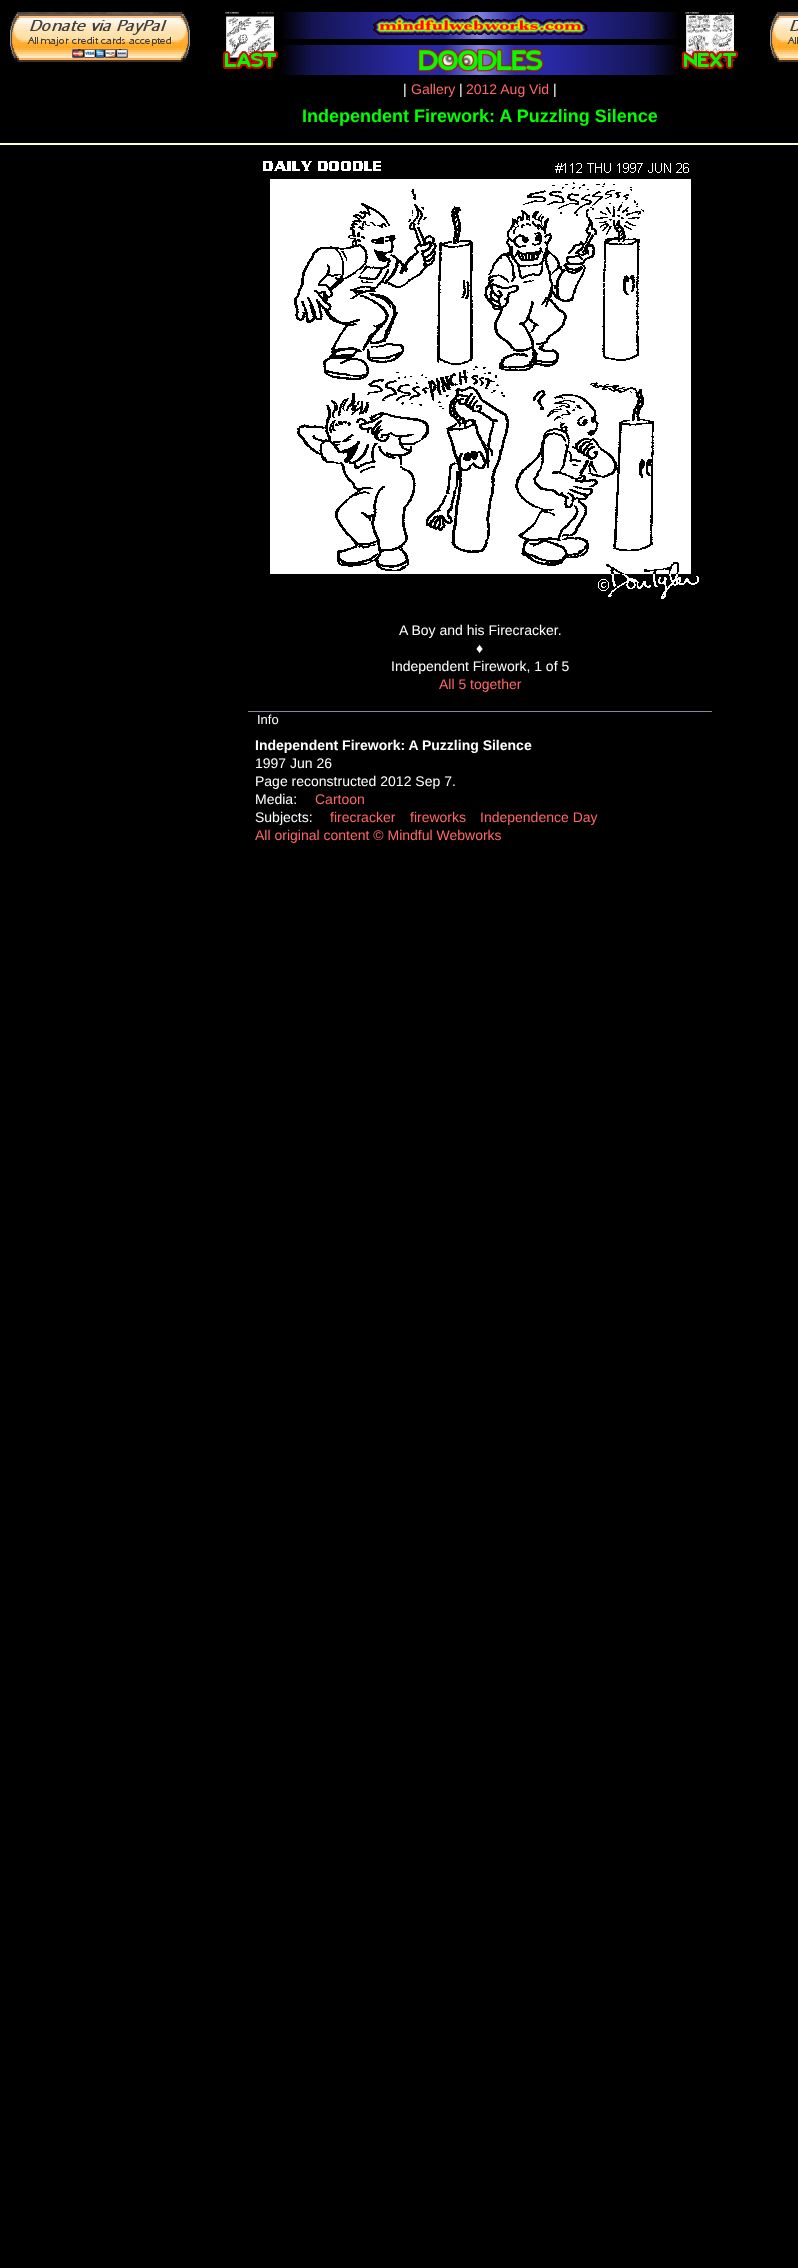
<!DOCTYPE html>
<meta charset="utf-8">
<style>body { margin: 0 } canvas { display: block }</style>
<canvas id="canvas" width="798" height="2268"></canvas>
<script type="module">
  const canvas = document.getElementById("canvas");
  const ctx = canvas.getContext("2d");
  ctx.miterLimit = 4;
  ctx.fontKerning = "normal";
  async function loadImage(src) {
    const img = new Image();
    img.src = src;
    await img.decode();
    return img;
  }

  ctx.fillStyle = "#000000";
  ctx.fillRect(0, 0, 798, 2268);
  ctx.drawImage(await loadImage("img1.png"), 10, 12, 180, 50);
  ctx.drawImage(await loadImage("img2.png"), 225, 12, 50, 50);
  ctx.drawImage(await loadImage("img3.png"), 223, 51, 55, 18);
  ctx.drawImage(await loadImage("img4.png"), 282, 12, 396, 27);
  ctx.drawImage(await loadImage("img5.png"), 373, 15, 215, 20);
  ctx.drawImage(await loadImage("img6.png"), 685, 12, 50, 50);
  ctx.drawImage(await loadImage("img7.png"), 682, 51, 56, 18);
  ctx.drawImage(await loadImage("img8.png"), 770, 12, 28, 50);
  ctx.drawImage(await loadImage("img9.png"), 282, 45, 396, 30);
  ctx.drawImage(await loadImage("img10.png"), 418, 49, 126, 23);
  ctx.font = "14px Liberation Sans";
  ctx.fillStyle = "#ffffff";
  ctx.fillText("|", 403, 94);
  ctx.fillStyle = "#ff6666";
  ctx.fillText("Gallery", 411, 94);
  ctx.fillStyle = "#ffffff";
  ctx.fillText("|", 459, 94);
  ctx.fillStyle = "#ff6666";
  ctx.fillText("2012 Aug Vid", 466, 94);
  ctx.fillStyle = "#ffffff";
  ctx.fillText("|", 553, 94);
  ctx.font = "bold 18px Liberation Sans";
  ctx.fillStyle = "#00ff00";
  ctx.fillText("Independent Firework: A Puzzling Silence", 302, 122);
  ctx.fillStyle = "#ffffcc";
  ctx.fillRect(0, 143, 798, 2);
  ctx.drawImage(await loadImage("img11.png"), 263, 161, 436, 438);
  ctx.font = "14px Liberation Sans";
  ctx.fillStyle = "#ffffff";
  ctx.fillText("A Boy and his Firecracker.", 399, 635);
  ctx.fillText("♦", 476, 653);
  ctx.fillText("Independent Firework, 1 of 5", 391, 671);
  ctx.fillStyle = "#ff6666";
  ctx.fillText("All 5 together", 439, 689);
  ctx.fillStyle = "#888899";
  ctx.fillRect(248, 711, 464, 1);
  ctx.font = "13px Liberation Sans";
  ctx.fillStyle = "#ffffff";
  ctx.fillText("Info", 257, 724);
  ctx.font = "bold 14px Liberation Sans";
  ctx.fillText("Independent Firework: A Puzzling Silence", 255, 750);
  ctx.font = "14px Liberation Sans";
  ctx.fillText("1997 Jun 26", 255, 768);
  ctx.fillText("Page reconstructed 2012 Sep 7.", 255, 786);
  ctx.fillText("Media:", 255, 804);
  ctx.fillStyle = "#ff6666";
  ctx.fillText("Cartoon", 315, 804);
  ctx.fillStyle = "#ffffff";
  ctx.fillText("Subjects:", 255, 822);
  ctx.fillStyle = "#ff6666";
  ctx.fillText("firecracker", 330, 822);
  ctx.fillText("fireworks", 410, 822);
  ctx.fillText("Independence Day", 480, 822);
  ctx.fillText("All original content © Mindful Webworks", 255, 840);
</script>
